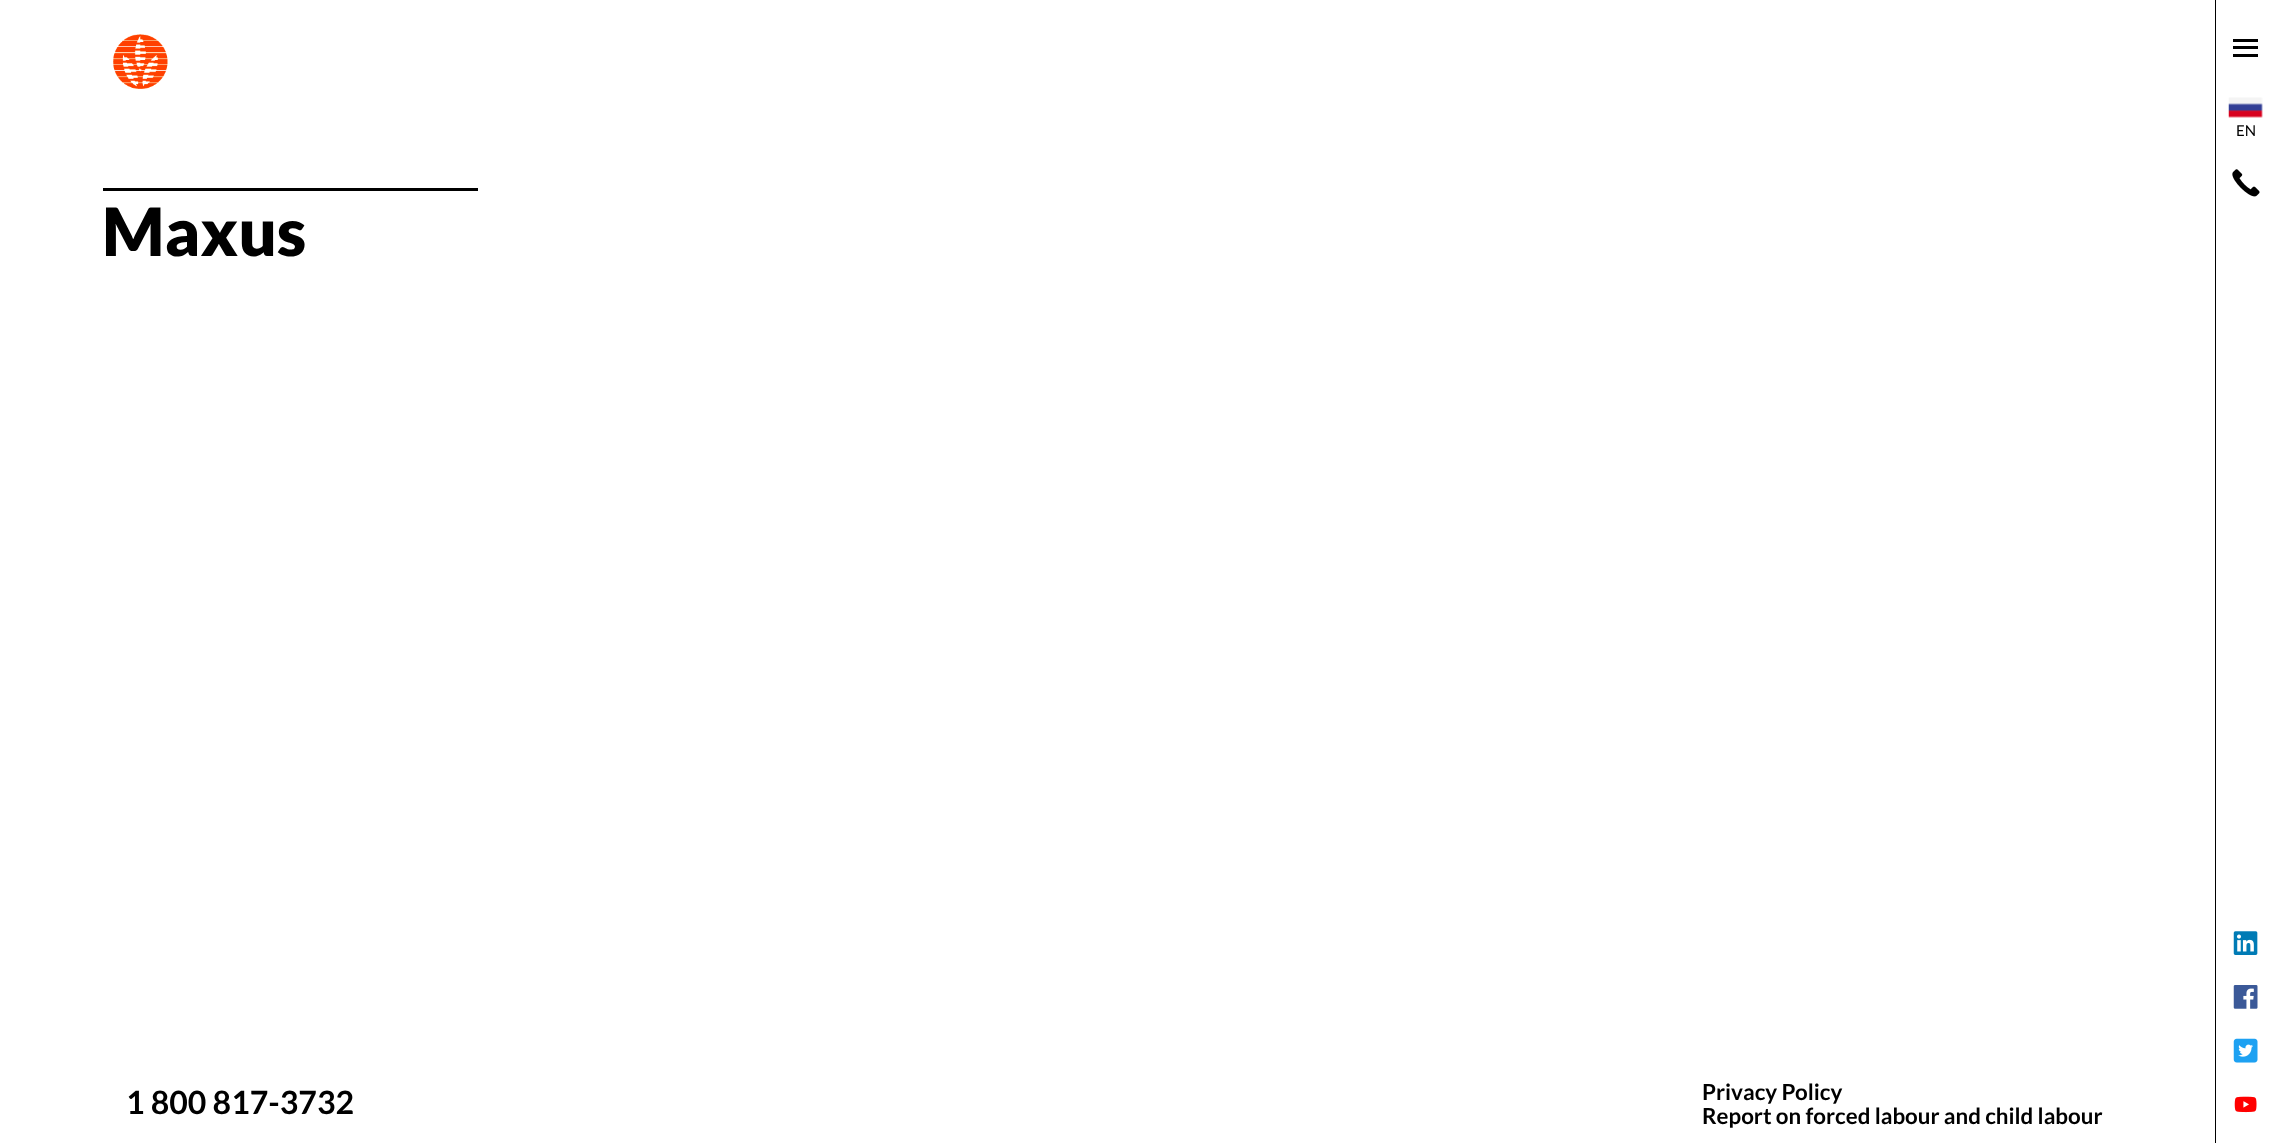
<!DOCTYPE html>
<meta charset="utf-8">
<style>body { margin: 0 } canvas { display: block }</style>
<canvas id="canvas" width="2274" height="1143"></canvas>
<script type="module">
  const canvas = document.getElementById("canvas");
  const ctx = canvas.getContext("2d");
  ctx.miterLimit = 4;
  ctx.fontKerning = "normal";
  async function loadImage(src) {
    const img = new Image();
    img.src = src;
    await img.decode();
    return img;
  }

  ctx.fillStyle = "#ffffff";
  ctx.fillRect(0, 0, 2274, 1143);
  ctx.drawImage(await loadImage("img1.png"), 113, 34, 55, 55);
  ctx.fillStyle = "#000000";
  ctx.fillRect(2233, 46, 25, 3);
  ctx.fillRect(2233, 39, 25, 3);
  ctx.fillRect(2233, 54, 25, 3);
  ctx.fillRect(2215, 0, 1, 1143);
  ctx.drawImage(await loadImage("img2.png"), 2228, 97, 35, 21);
  ctx.font = "15px Lato";
  ctx.fillText("EN", 2236, 136);
  ctx.drawImage(await loadImage("img3.png"), 2232, 169, 28, 28);
  ctx.drawImage(await loadImage("img4.png"), 2233, 931, 25, 24);
  ctx.drawImage(await loadImage("img5.png"), 2233, 985, 25, 24);
  ctx.drawImage(await loadImage("img6.png"), 2233, 1038, 25, 25);
  ctx.drawImage(await loadImage("img7.png"), 2234, 1096, 23, 17);
  ctx.fillRect(103, 188, 375, 3);
  ctx.font = "900 66.5px Lato";
  ctx.fillText("Maxus", 102, 256);
  ctx.font = "bold 32px Lato";
  ctx.fillText("1 800 817-3732", 126, 1114);
  ctx.font = "bold 22.3px Lato";
  ctx.fillText("Privacy Policy", 1702, 1100);
  ctx.fillText("Report on forced labour and child labour", 1702, 1124);
</script>
